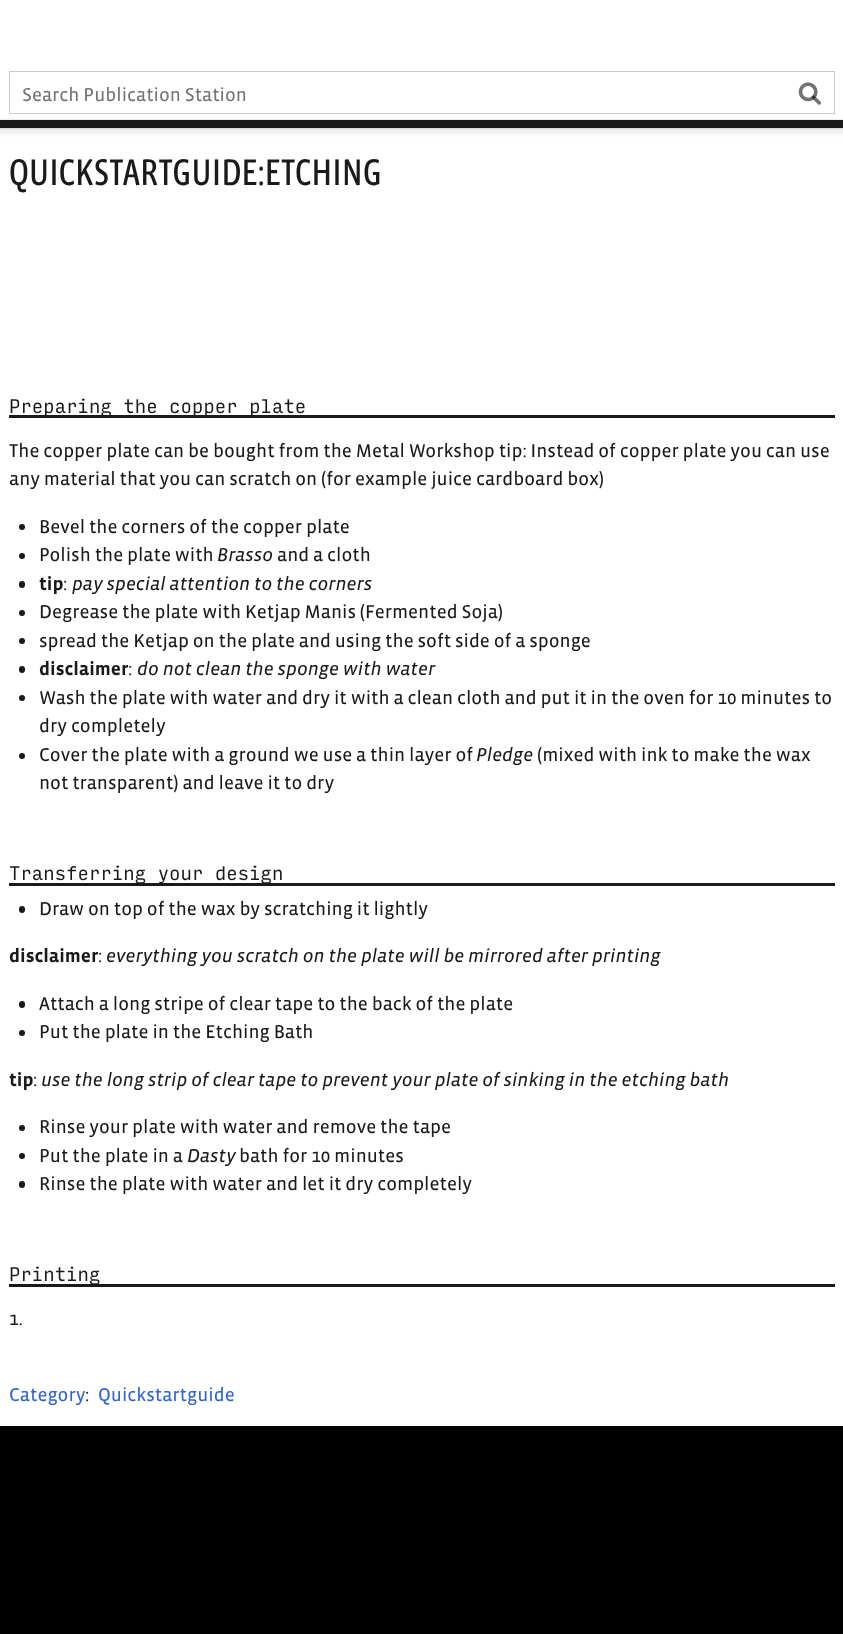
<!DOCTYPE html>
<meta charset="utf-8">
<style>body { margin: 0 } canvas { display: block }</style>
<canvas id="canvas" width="843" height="1634"></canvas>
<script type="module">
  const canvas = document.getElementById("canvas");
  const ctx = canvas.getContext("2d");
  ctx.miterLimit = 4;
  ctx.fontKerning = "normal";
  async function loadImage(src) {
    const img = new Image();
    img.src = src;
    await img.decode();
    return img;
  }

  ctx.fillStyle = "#000000";
  ctx.fillRect(0, 0, 843, 1634);
  ctx.fillStyle = "#ffffff";
  ctx.fillRect(0, 0, 843, 120);
  ctx.strokeStyle = "#c8ccd1";
  ctx.strokeRect(9.5, 71.5, 825, 42);
  ctx.drawImage(await loadImage("img1.png"), 798, 82, 23, 23);
  ctx.font = "19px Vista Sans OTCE";
  ctx.fillStyle = "#757575";
  ctx.fillText("Search Publication Station", 22, 101);
  ctx.drawImage(await loadImage("img2.png"), 798, 82, 23, 23);
  ctx.fillStyle = "#ffffff";
  ctx.fillRect(0, 128, 843, 1298);
  ctx.fillStyle = "rgba(0, 0, 0, 0.2)";
  ctx.filter = "blur(1px)";
  ctx.beginPath();
  ctx.rect(0, 120, 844, 8);
  ctx.fill();
  ctx.filter = "none";
  ctx.fillStyle = "rgba(0, 0, 0, 0.07)";
  ctx.filter = "blur(2px)";
  ctx.beginPath();
  ctx.rect(-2, 121, 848, 13);
  ctx.fill();
  ctx.filter = "none";
  ctx.fillStyle = "#1a1a1a";
  ctx.fillRect(0, 120, 843, 8);
  ctx.font = "38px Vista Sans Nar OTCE";
  ctx.fillText("QUICKSTARTGUIDE:ETCHING", 9, 185);
  ctx.font = "19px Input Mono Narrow";
  ctx.fillText("Preparing the copper plate", 9, 413);
  ctx.fillRect(9, 415, 826, 3);
  ctx.font = "19px Vista Sans OTCE";
  ctx.fillText("The copper plate can be bought from the Metal Workshop tip: Instead of copper plate you can use", 9, 457);
  ctx.fillText("any material that you can scratch on (for example juice cardboard box)", 9, 485);
  ctx.beginPath();
  ctx.arc(22, 527, 3, 0, Math.PI * 2);
  ctx.fill();
  ctx.fillText("Bevel the corners of the copper plate", 39, 533);
  ctx.beginPath();
  ctx.arc(22, 556, 3, 0, Math.PI * 2);
  ctx.fill();
  ctx.fillText("Polish the plate with", 39, 561);
  ctx.font = "italic 19px Vista Sans OTCE";
  ctx.fillText("Brasso", 217, 561);
  ctx.font = "19px Vista Sans OTCE";
  ctx.fillText("and a cloth", 277, 561);
  ctx.beginPath();
  ctx.roundRect(19, 581, 6, 7, 3);
  ctx.fill();
  ctx.font = "bold 19px Vista Sans OTCE";
  ctx.fillText("tip", 39, 590);
  ctx.font = "19px Vista Sans OTCE";
  ctx.fillText(":", 63, 590);
  ctx.font = "italic 19px Vista Sans OTCE";
  ctx.fillText("pay special attention to the corners", 72, 590);
  ctx.beginPath();
  ctx.arc(22, 613, 3, 0, Math.PI * 2);
  ctx.fill();
  ctx.font = "19px Vista Sans OTCE";
  ctx.fillText("Degrease the plate with Ketjap Manis (Fermented Soja)", 39, 618);
  ctx.beginPath();
  ctx.arc(22, 641, 3, 0, Math.PI * 2);
  ctx.fill();
  ctx.fillText("spread the Ketjap on the plate and using the soft side of a sponge", 39, 647);
  ctx.beginPath();
  ctx.roundRect(19, 666, 6, 7, 3);
  ctx.fill();
  ctx.font = "bold 19px Vista Sans OTCE";
  ctx.fillText("disclaimer", 39, 675);
  ctx.font = "19px Vista Sans OTCE";
  ctx.fillText(":", 128, 675);
  ctx.font = "italic 19px Vista Sans OTCE";
  ctx.fillText("do not clean the sponge with water", 137, 675);
  ctx.beginPath();
  ctx.arc(22, 698, 3, 0, Math.PI * 2);
  ctx.fill();
  ctx.font = "19px Vista Sans OTCE";
  ctx.fillText("Wash the plate with water and dry it with a clean cloth and put it in the oven for 10 minutes to", 39, 704);
  ctx.fillText("dry completely", 39, 732);
  ctx.beginPath();
  ctx.arc(22, 756, 3, 0, Math.PI * 2);
  ctx.fill();
  ctx.fillText("Cover the plate with a ground we use a thin layer of", 39, 761);
  ctx.font = "italic 19px Vista Sans OTCE";
  ctx.fillText("Pledge", 476, 761);
  ctx.font = "19px Vista Sans OTCE";
  ctx.fillText("(mixed with ink to make the wax", 537, 761);
  ctx.fillText("not transparent) and leave it to dry", 39, 789);
  ctx.font = "19px Input Mono Narrow";
  ctx.fillText("Transferring your design", 9, 880);
  ctx.fillRect(9, 883, 826, 3);
  ctx.beginPath();
  ctx.roundRect(19, 906, 6, 7, 3);
  ctx.fill();
  ctx.font = "19px Vista Sans OTCE";
  ctx.fillText("Draw on top of the wax by scratching it lightly", 39, 915);
  ctx.font = "bold 19px Vista Sans OTCE";
  ctx.fillText("disclaimer", 9, 962);
  ctx.font = "19px Vista Sans OTCE";
  ctx.fillText(":", 98, 962);
  ctx.font = "italic 19px Vista Sans OTCE";
  ctx.fillText("everything you scratch on the plate will be mirrored after printing", 106, 962);
  ctx.beginPath();
  ctx.roundRect(19, 1001, 6, 7, 3);
  ctx.fill();
  ctx.font = "19px Vista Sans OTCE";
  ctx.fillText("Attach a long stripe of clear tape to the back of the plate", 39, 1010);
  ctx.beginPath();
  ctx.arc(22, 1033, 3, 0, Math.PI * 2);
  ctx.fill();
  ctx.fillText("Put the plate in the Etching Bath", 39, 1038);
  ctx.font = "bold 19px Vista Sans OTCE";
  ctx.fillText("tip", 9, 1086);
  ctx.font = "19px Vista Sans OTCE";
  ctx.fillText(":", 33, 1086);
  ctx.font = "italic 19px Vista Sans OTCE";
  ctx.fillText("use the long strip of clear tape to prevent your plate of sinking in the etching bath", 41, 1086);
  ctx.beginPath();
  ctx.arc(22, 1128, 3, 0, Math.PI * 2);
  ctx.fill();
  ctx.font = "19px Vista Sans OTCE";
  ctx.fillText("Rinse your plate with water and remove the tape", 39, 1133);
  ctx.beginPath();
  ctx.arc(22, 1156, 3, 0, Math.PI * 2);
  ctx.fill();
  ctx.fillText("Put the plate in a", 39, 1162);
  ctx.font = "italic 19px Vista Sans OTCE";
  ctx.fillText("Dasty", 187, 1162);
  ctx.font = "19px Vista Sans OTCE";
  ctx.fillText("bath for 10 minutes", 239, 1162);
  ctx.beginPath();
  ctx.roundRect(19, 1181, 6, 7, 3);
  ctx.fill();
  ctx.fillText("Rinse the plate with water and let it dry completely", 39, 1190);
  ctx.font = "19px Input Mono Narrow";
  ctx.fillText("Printing", 9, 1281);
  ctx.fillRect(9, 1284, 826, 3);
  ctx.font = "19px Vista Sans OTCE";
  ctx.fillText("1.", 9, 1325);
  ctx.fillStyle = "#3366cc";
  ctx.fillText("Category", 9, 1401);
  ctx.fillStyle = "#1a1a1a";
  ctx.fillText(":", 85, 1401);
  ctx.fillStyle = "#3366cc";
  ctx.fillText("Quickstartguide", 98, 1401);
</script>
